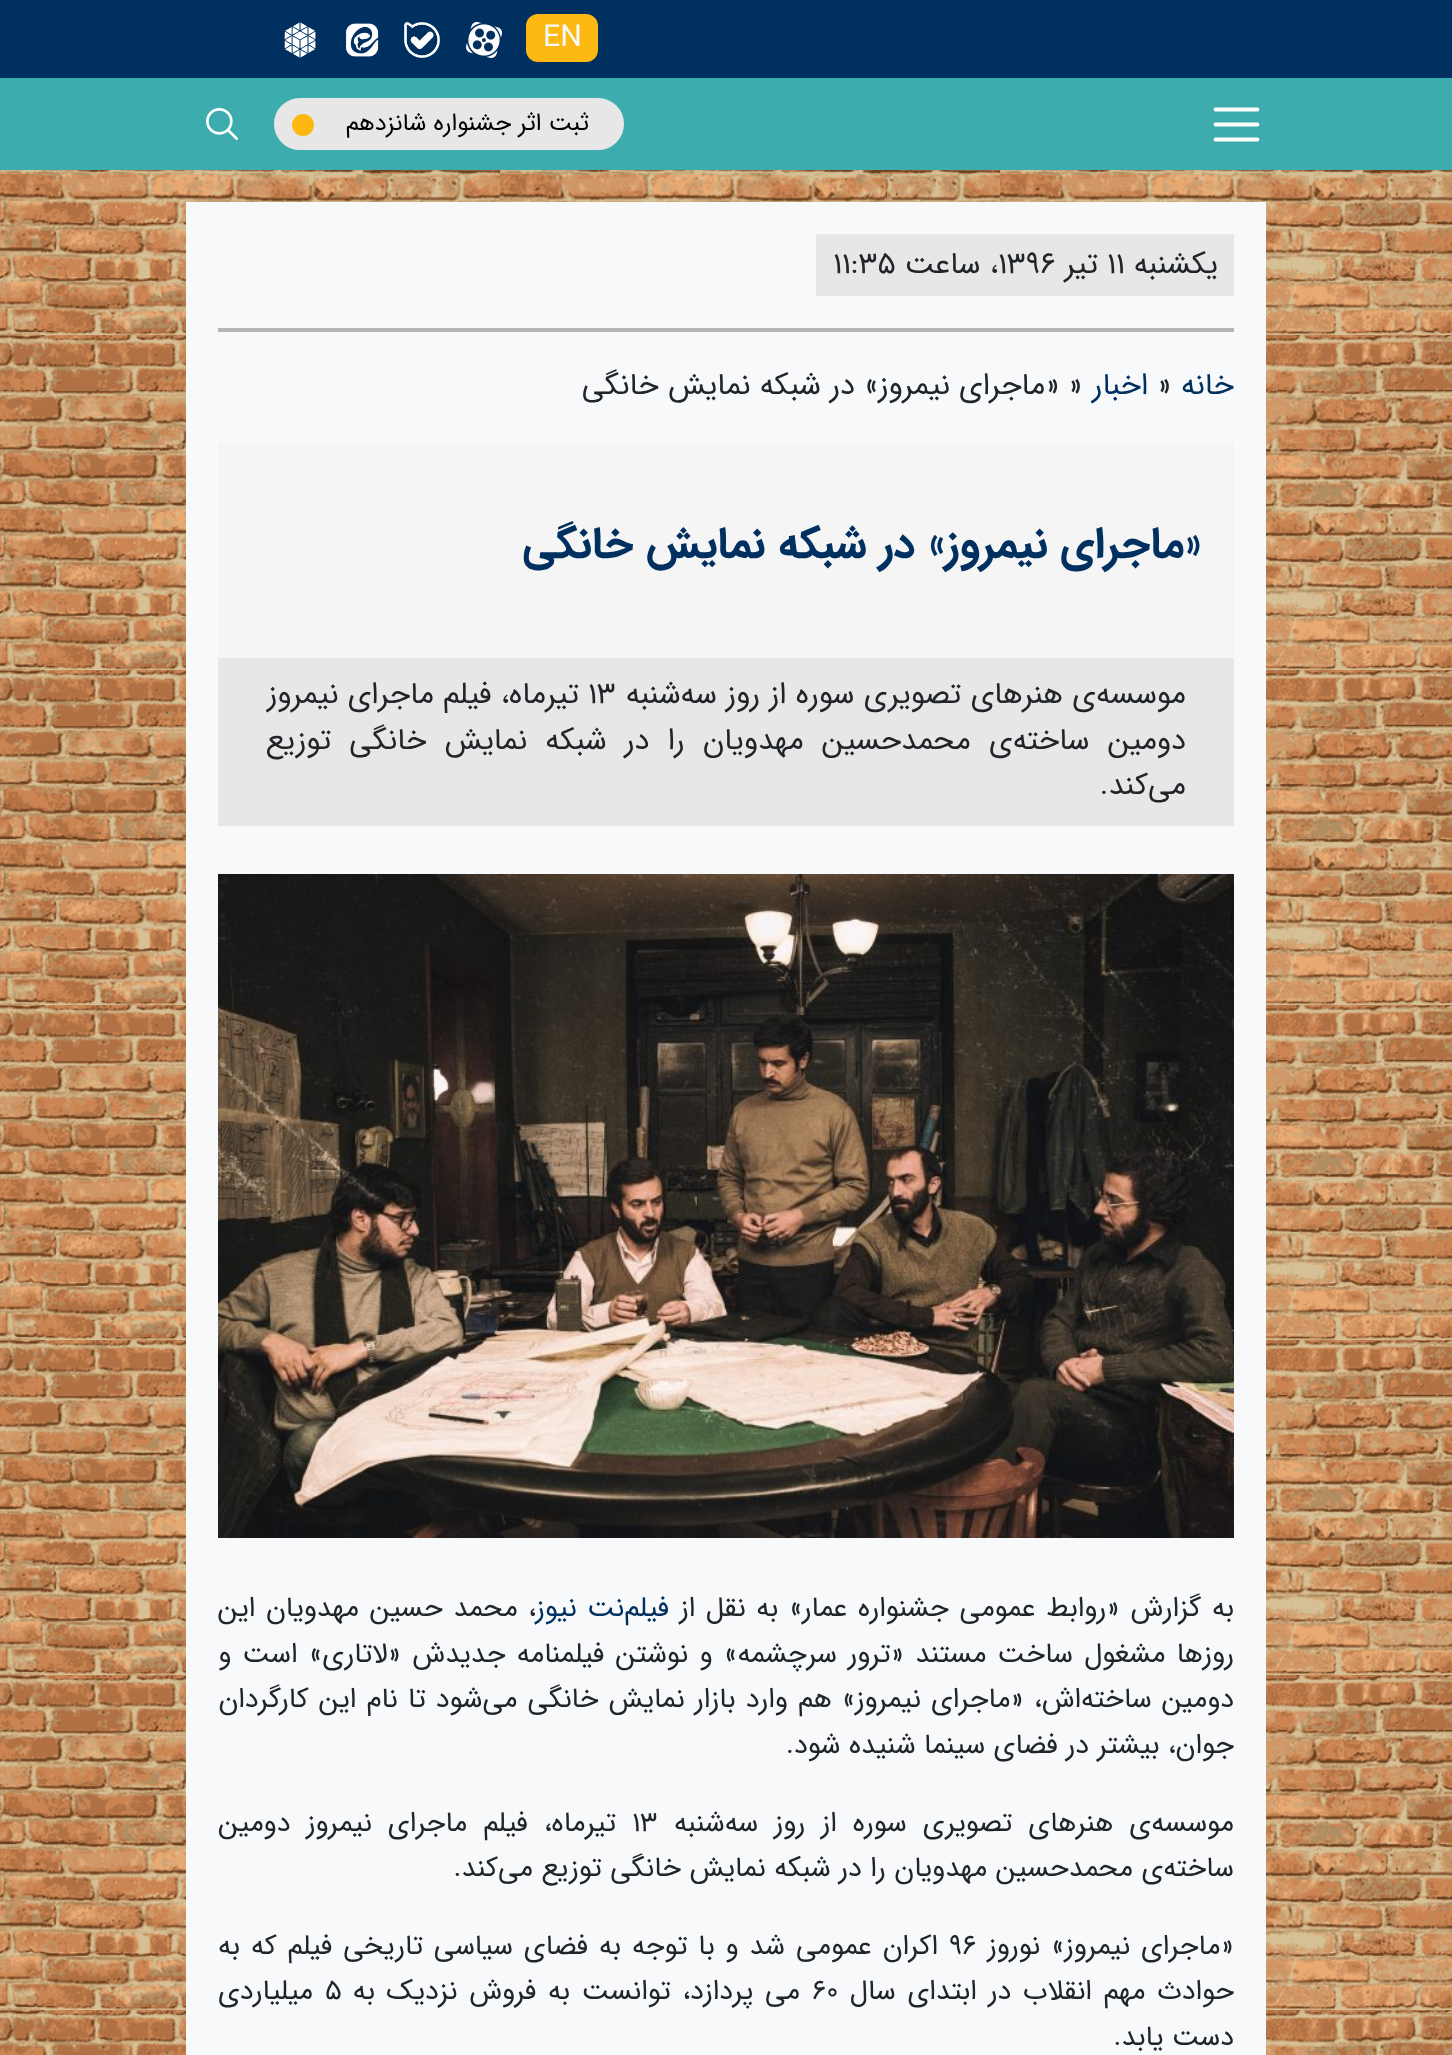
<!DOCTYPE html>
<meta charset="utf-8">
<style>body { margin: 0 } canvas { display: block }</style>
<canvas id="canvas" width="1452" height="2055"></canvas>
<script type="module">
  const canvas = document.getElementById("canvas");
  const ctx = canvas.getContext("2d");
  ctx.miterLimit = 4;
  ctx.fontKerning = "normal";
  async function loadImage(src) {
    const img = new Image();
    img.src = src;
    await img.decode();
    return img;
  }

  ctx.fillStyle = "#ffffff";
  ctx.fillRect(0, 0, 1452, 2055);
  ctx.drawImage(await loadImage("img1.png"), 0, 170, 1452, 1885);
  ctx.fillStyle = "#003060";
  ctx.fillRect(0, 0, 1452, 78);
  ctx.fillStyle = "#fdb812";
  ctx.beginPath();
  ctx.roundRect(526, 14, 72, 48, 12);
  ctx.fill();
  ctx.font = "30.4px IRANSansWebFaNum";
  ctx.fillStyle = "#f8f9fa";
  ctx.fillText("EN", 543, 46);
  ctx.drawImage(await loadImage("img2.png"), 466, 22, 36, 36);
  ctx.drawImage(await loadImage("img3.png"), 404, 22, 36, 36);
  ctx.drawImage(await loadImage("img4.png"), 345, 23, 34, 34);
  ctx.drawImage(await loadImage("img5.png"), 284, 22, 32, 36);
  ctx.fillStyle = "#3cacae";
  ctx.fillRect(0, 78, 1452, 92);
  ctx.beginPath();
  ctx.moveTo(1215.5, 109.5);
  ctx.lineTo(1257.5, 109.5);
  ctx.moveTo(1215.5, 124.5);
  ctx.lineTo(1257.5, 124.5);
  ctx.moveTo(1215.5, 139.5);
  ctx.lineTo(1257.5, 139.5);
  ctx.strokeStyle = "#ffffff";
  ctx.lineWidth = 3.8;
  ctx.lineCap = "round";
  ctx.stroke();
  ctx.fillStyle = "#e7e7e7";
  ctx.beginPath();
  ctx.roundRect(275, 99, 348, 50, 25);
  ctx.fill();
  ctx.strokeStyle = "#e7e7e7";
  ctx.lineWidth = 2;
  ctx.stroke();
  ctx.direction = "rtl";
  ctx.font = "24px IRANSansWebFaNum";
  ctx.fillStyle = "#000000";
  ctx.fillText("ثبت اثر جشنواره شانزدهم", 589, 130);
  ctx.fillStyle = "#fdb812";
  ctx.beginPath();
  ctx.arc(303, 125, 11, 0, Math.PI * 2);
  ctx.fill();
  ctx.drawImage(await loadImage("img6.png"), 206, 108, 32, 32);
  ctx.fillStyle = "#f8f9fa";
  ctx.fillRect(186, 202, 1080, 1853);
  ctx.fillStyle = "#b6b6b6";
  ctx.fillRect(218, 328, 1016, 4);
  ctx.fillStyle = "#e7e7e7";
  ctx.fillRect(816, 234, 418, 62);
  ctx.font = "30.4px IRANSansWebFaNum";
  ctx.fillStyle = "#212529";
  ctx.fillText("یکشنبه", 1218, 273);
  ctx.direction = "ltr";
  ctx.fillText("11", 1107, 273);
  ctx.direction = "rtl";
  ctx.fillText("تیر", 1098, 273);
  ctx.direction = "ltr";
  ctx.fillText("1396", 998, 273);
  ctx.direction = "rtl";
  ctx.fillText("، ساعت", 998, 273);
  ctx.direction = "ltr";
  ctx.fillText("11:35", 833, 273);
  ctx.direction = "rtl";
  ctx.fillStyle = "#003060";
  ctx.fillText("خانه", 1234, 394);
  ctx.direction = "ltr";
  ctx.fillStyle = "#212529";
  ctx.fillText("»", 1157, 394);
  ctx.direction = "rtl";
  ctx.fillStyle = "#003060";
  ctx.fillText("اخبار", 1148, 394);
  ctx.direction = "ltr";
  ctx.fillStyle = "#212529";
  ctx.fillText("»", 1068, 394);
  ctx.direction = "rtl";
  ctx.fillText("«ماجرای نیمروز» در شبکه نمایش خانگی", 1060, 394);
  ctx.fillStyle = "#f5f5f5";
  ctx.fillRect(218, 442, 1016, 216);
  ctx.font = "bold 43.6px IRANSansWebFaNum";
  ctx.fillStyle = "#003060";
  ctx.fillText("«ماجرای نیمروز» در شبکه نمایش خانگی", 1202, 557);
  ctx.fillStyle = "#e7e7e7";
  ctx.fillRect(218, 658, 1016, 168);
  ctx.wordSpacing = "0.25px";
  ctx.font = "30.4px IRANSansWebFaNum";
  ctx.fillStyle = "#212529";
  ctx.fillText("موسسه‌ی هنرهای تصویری سوره از روز سه‌شنبه", 1186, 703);
  ctx.wordSpacing = "0px";
  ctx.direction = "ltr";
  ctx.fillText("۱۳", 588, 703);
  ctx.direction = "rtl";
  ctx.fillText("تیرماه، فیلم ماجرای نیمروز", 579, 703);
  ctx.wordSpacing = "9px";
  ctx.fillText("دومین ساخته‌ی محمدحسین مهدویان را در شبکه نمایش خانگی توزیع", 1186, 749);
  ctx.wordSpacing = "0px";
  ctx.fillText("می‌کند.", 1186, 794);
  ctx.drawImage(await loadImage("img7.png"), 218, 874, 1016, 664);
  ctx.wordSpacing = "2.25px";
  ctx.font = "28px IRANSansWebFaNum";
  ctx.fillText("به گزارش «روابط عمومی جشنواره عمار» به نقل از", 1234, 1616);
  ctx.fillStyle = "#003060";
  ctx.fillText("فیلم‌نت نیوز", 669, 1616);
  ctx.fillStyle = "#212529";
  ctx.fillText("، محمد حسین مهدویان این", 536, 1616);
  ctx.wordSpacing = "2.75px";
  ctx.fillText("روزها مشغول ساخت مستند «ترور سرچشمه» و نوشتن فیلمنامه جدیدش «لاتاری» است و", 1234, 1662);
  ctx.wordSpacing = "1.6px";
  ctx.fillText("دومین ساخته‌اش، «ماجرای نیمروز» هم وارد بازار نمایش خانگی می‌شود تا نام این کارگردان", 1234, 1707);
  ctx.wordSpacing = "0px";
  ctx.fillText("جوان، بیشتر در فضای سینما شنیده شود.", 1234, 1753);
  ctx.wordSpacing = "7.5px";
  ctx.fillText("موسسه‌ی هنرهای تصویری سوره از روز سه‌شنبه", 1234, 1831);
  ctx.wordSpacing = "0px";
  ctx.direction = "ltr";
  ctx.fillText("۱۳", 632, 1831);
  ctx.wordSpacing = "7.5px";
  ctx.direction = "rtl";
  ctx.fillText("تیرماه، فیلم ماجرای نیمروز دومین", 616, 1831);
  ctx.wordSpacing = "0px";
  ctx.fillText("ساخته‌ی محمدحسین مهدویان را در شبکه نمایش خانگی توزیع می‌کند.", 1234, 1876);
  ctx.wordSpacing = "2.4px";
  ctx.fillText("«ماجرای نیمروز» نوروز", 1234, 1954);
  ctx.wordSpacing = "0px";
  ctx.direction = "ltr";
  ctx.fillText("۹۶", 949, 1954);
  ctx.wordSpacing = "2.4px";
  ctx.direction = "rtl";
  ctx.fillText("اکران عمومی شد و با توجه به فضای سیاسی تاریخی فیلم که به", 938, 1954);
  ctx.wordSpacing = "3.25px";
  ctx.fillText("حوادث مهم انقلاب در ابتدای سال", 1234, 1999);
  ctx.wordSpacing = "0px";
  ctx.direction = "ltr";
  ctx.fillText("۶۰", 812, 1999);
  ctx.wordSpacing = "3.25px";
  ctx.direction = "rtl";
  ctx.fillText("می پردازد، توانست به فروش نزدیک به", 800, 1999);
  ctx.wordSpacing = "0px";
  ctx.direction = "ltr";
  ctx.fillText("۵", 325, 1999);
  ctx.direction = "rtl";
  ctx.fillText("میلیاردی", 313, 1999);
  ctx.fillText("دست یابد.", 1234, 2045);
</script>
